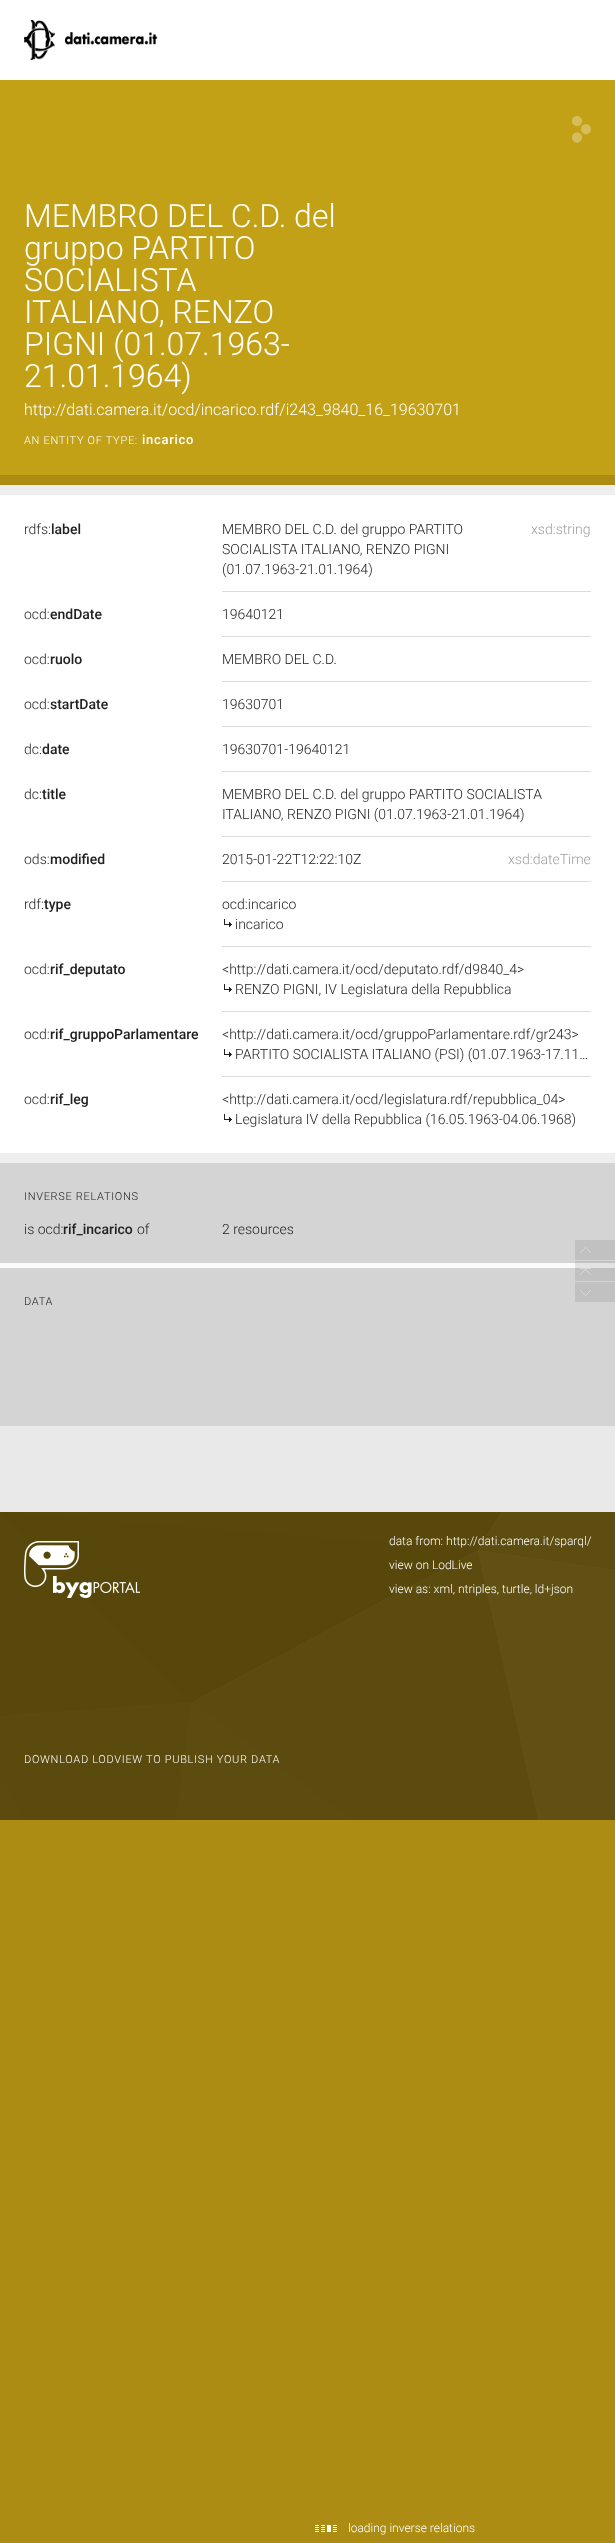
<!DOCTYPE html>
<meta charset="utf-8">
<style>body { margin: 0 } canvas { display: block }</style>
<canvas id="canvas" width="615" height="2543"></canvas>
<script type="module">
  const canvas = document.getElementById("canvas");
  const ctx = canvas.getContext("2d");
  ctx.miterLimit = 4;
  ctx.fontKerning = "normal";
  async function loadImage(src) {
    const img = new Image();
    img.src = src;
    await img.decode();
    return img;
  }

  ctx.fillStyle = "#ac8c13";
  ctx.fillRect(0, 0, 615, 2543);
  ctx.fillStyle = "#ffffff";
  ctx.fillRect(0, 0, 615, 80);
  ctx.drawImage(await loadImage("img1.png"), 24, 20, 134, 40);
  ctx.fillStyle = "#c3a116";
  ctx.fillRect(0, 80, 615, 395);
  ctx.font = "300 32px Roboto";
  ctx.fillStyle = "#ffffff";
  ctx.fillText("MEMBRO DEL C.D. del", 24, 227);
  ctx.fillText("gruppo PARTITO", 24, 259);
  ctx.fillText("SOCIALISTA", 24, 291);
  ctx.fillText("ITALIANO, RENZO", 24, 323);
  ctx.fillText("PIGNI (01.07.1963-", 24, 355);
  ctx.fillText("21.01.1964)", 24, 387);
  ctx.drawImage(await loadImage("img2.png"), 572, 116, 19, 27);
  ctx.font = "300 16px Roboto";
  ctx.fillText("http://dati.camera.it/ocd/incarico.rdf/i243_9840_16_19630701", 24, 415);
  ctx.letterSpacing = "0.7px";
  ctx.font = "300 11px Roboto";
  ctx.fillText("AN ENTITY OF TYPE:", 24, 444);
  ctx.font = "500 13px Roboto";
  ctx.fillText("incarico", 142, 444);
  ctx.fillStyle = "#eeeeee";
  ctx.fillRect(0, 485, 615, 10);
  ctx.fillStyle = "#ffffff";
  ctx.fillRect(0, 495, 615, 658);
  ctx.letterSpacing = "0px";
  ctx.font = "300 14px Roboto";
  ctx.fillStyle = "#212121";
  ctx.fillText("rdfs:", 24, 534);
  ctx.font = "500 14px Roboto";
  ctx.fillText("label", 51, 534);
  ctx.fillStyle = "#dbdbdb";
  ctx.fillRect(222, 591, 369, 1);
  ctx.font = "300 14px Roboto";
  ctx.fillStyle = "#212121";
  ctx.fillText("MEMBRO DEL C.D. del gruppo PARTITO", 222, 534);
  ctx.fillStyle = "#9e9e9e";
  ctx.fillText("xsd:string", 531, 534);
  ctx.fillStyle = "#212121";
  ctx.fillText("SOCIALISTA ITALIANO, RENZO PIGNI", 222, 554);
  ctx.fillText("(01.07.1963-21.01.1964)", 222, 574);
  ctx.fillText("ocd:", 24, 619);
  ctx.font = "500 14px Roboto";
  ctx.fillText("endDate", 50, 619);
  ctx.fillStyle = "#dbdbdb";
  ctx.fillRect(222, 636, 369, 1);
  ctx.font = "300 14px Roboto";
  ctx.fillStyle = "#212121";
  ctx.fillText("19640121", 222, 619);
  ctx.fillText("ocd:", 24, 664);
  ctx.font = "500 14px Roboto";
  ctx.fillText("ruolo", 50, 664);
  ctx.fillStyle = "#dbdbdb";
  ctx.fillRect(222, 681, 369, 1);
  ctx.font = "300 14px Roboto";
  ctx.fillStyle = "#212121";
  ctx.fillText("MEMBRO DEL C.D.", 222, 664);
  ctx.fillText("ocd:", 24, 709);
  ctx.font = "500 14px Roboto";
  ctx.fillText("startDate", 50, 709);
  ctx.fillStyle = "#dbdbdb";
  ctx.fillRect(222, 726, 369, 1);
  ctx.font = "300 14px Roboto";
  ctx.fillStyle = "#212121";
  ctx.fillText("19630701", 222, 709);
  ctx.fillText("dc:", 24, 754);
  ctx.font = "500 14px Roboto";
  ctx.fillText("date", 42, 754);
  ctx.fillStyle = "#dbdbdb";
  ctx.fillRect(222, 771, 369, 1);
  ctx.font = "300 14px Roboto";
  ctx.fillStyle = "#212121";
  ctx.fillText("19630701-19640121", 222, 754);
  ctx.fillText("dc:", 24, 799);
  ctx.font = "500 14px Roboto";
  ctx.fillText("title", 42, 799);
  ctx.fillStyle = "#dbdbdb";
  ctx.fillRect(222, 836, 369, 1);
  ctx.font = "300 14px Roboto";
  ctx.fillStyle = "#212121";
  ctx.fillText("MEMBRO DEL C.D. del gruppo PARTITO SOCIALISTA", 222, 799);
  ctx.fillText("ITALIANO, RENZO PIGNI (01.07.1963-21.01.1964)", 222, 819);
  ctx.fillText("ods:", 24, 864);
  ctx.font = "500 14px Roboto";
  ctx.fillText("modified", 50, 864);
  ctx.fillStyle = "#dbdbdb";
  ctx.fillRect(222, 881, 369, 1);
  ctx.font = "300 14px Roboto";
  ctx.fillStyle = "#212121";
  ctx.fillText("2015-01-22T12:22:10Z", 222, 864);
  ctx.fillStyle = "#9e9e9e";
  ctx.fillText("xsd:dateTime", 508, 864);
  ctx.fillStyle = "#212121";
  ctx.fillText("rdf:", 24, 909);
  ctx.font = "500 14px Roboto";
  ctx.fillText("type", 44, 909);
  ctx.fillStyle = "#dbdbdb";
  ctx.fillRect(222, 946, 369, 1);
  ctx.font = "300 14px Roboto";
  ctx.fillStyle = "#212121";
  ctx.fillText("ocd:incarico", 222, 909);
  ctx.drawImage(await loadImage("img3.png"), 224, 919, 8, 8);
  ctx.fillText("incarico", 235, 929);
  ctx.fillText("ocd:", 24, 974);
  ctx.font = "500 14px Roboto";
  ctx.fillText("rif_deputato", 50, 974);
  ctx.fillStyle = "#dbdbdb";
  ctx.fillRect(222, 1011, 369, 1);
  ctx.font = "300 14px Roboto";
  ctx.fillStyle = "#212121";
  ctx.fillText("<http://dati.camera.it/ocd/deputato.rdf/d9840_4>", 222, 974);
  ctx.drawImage(await loadImage("img3.png"), 224, 984, 8, 8);
  ctx.fillText("RENZO PIGNI, IV Legislatura della Repubblica", 235, 994);
  ctx.fillText("ocd:", 24, 1039);
  ctx.font = "500 14px Roboto";
  ctx.fillText("rif_gruppoParlamentare", 50, 1039);
  ctx.fillStyle = "#dbdbdb";
  ctx.fillRect(222, 1076, 369, 1);
  ctx.font = "300 14px Roboto";
  ctx.fillStyle = "#212121";
  ctx.fillText("<http://dati.camera.it/ocd/gruppoParlamentare.rdf/gr243>", 222, 1039);
  ctx.drawImage(await loadImage("img3.png"), 224, 1049, 8, 8);
  ctx.fillText("PARTITO SOCIALISTA ITALIANO (PSI) (01.07.1963-17.11…", 235, 1059);
  ctx.fillText("ocd:", 24, 1104);
  ctx.font = "500 14px Roboto";
  ctx.fillText("rif_leg", 50, 1104);
  ctx.font = "300 14px Roboto";
  ctx.fillText("<http://dati.camera.it/ocd/legislatura.rdf/repubblica_04>", 222, 1104);
  ctx.drawImage(await loadImage("img3.png"), 224, 1114, 8, 8);
  ctx.fillText("Legislatura IV della Repubblica (16.05.1963-04.06.1968)", 235, 1124);
  ctx.fillStyle = "#eeeeee";
  ctx.fillRect(0, 1153, 615, 10);
  ctx.fillStyle = "#d4d4d4";
  ctx.fillRect(0, 1163, 615, 100);
  ctx.letterSpacing = "0.7px";
  ctx.font = "300 11px Roboto";
  ctx.fillStyle = "#212121";
  ctx.fillText("INVERSE RELATIONS", 24, 1200);
  ctx.letterSpacing = "0px";
  ctx.font = "300 14px Roboto";
  ctx.fillText("is ocd:", 24, 1234);
  ctx.font = "500 14px Roboto";
  ctx.fillText("rif_incarico", 63, 1234);
  ctx.font = "300 14px Roboto";
  ctx.fillText("of", 137, 1234);
  ctx.fillText("2 resources", 222, 1234);
  ctx.fillStyle = "#fafafa";
  ctx.fillRect(0, 1263, 615, 5);
  ctx.fillStyle = "#d4d4d4";
  ctx.fillRect(0, 1268, 615, 158);
  ctx.letterSpacing = "0.7px";
  ctx.font = "300 11px Roboto";
  ctx.fillStyle = "#212121";
  ctx.fillText("DATA", 24, 1305);
  ctx.fillStyle = "#e9e9e9";
  ctx.fillRect(0, 1426, 615, 86);
  ctx.drawImage(await loadImage("img4.png"), 575, 1240, 40, 20);
  ctx.drawImage(await loadImage("img5.png"), 575, 1261, 40, 20);
  ctx.drawImage(await loadImage("img6.png"), 575, 1282, 40, 20);
  ctx.drawImage(await loadImage("img7.png"), 0, 1512, 615, 308);
  ctx.letterSpacing = "0px";
  ctx.font = "300 12px Roboto";
  ctx.fillStyle = "#ffffff";
  ctx.fillText("data from: http://dati.camera.it/sparql/", 389, 1545);
  ctx.fillText("view on LodLive", 389, 1569);
  ctx.fillText("view as: xml, ntriples, turtle, ld+json", 389, 1593);
  ctx.drawImage(await loadImage("img8.png"), 24, 1541, 116, 57);
  ctx.letterSpacing = "0.7px";
  ctx.font = "300 11px Roboto";
  ctx.fillText("DOWNLOAD LODVIEW TO PUBLISH YOUR DATA", 24, 1763);
  ctx.drawImage(await loadImage("img9.png"), 315, 2525, 22, 7);
  ctx.letterSpacing = "0px";
  ctx.font = "300 12px Roboto";
  ctx.fillText("loading inverse relations", 348, 2532);
</script>
